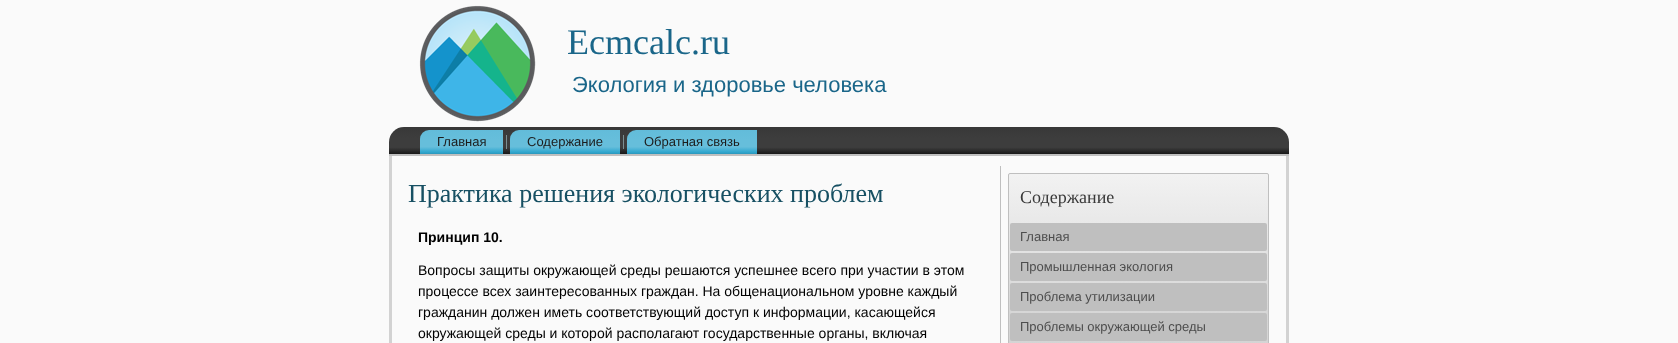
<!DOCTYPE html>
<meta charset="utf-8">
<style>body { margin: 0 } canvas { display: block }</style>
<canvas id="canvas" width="1678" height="343"></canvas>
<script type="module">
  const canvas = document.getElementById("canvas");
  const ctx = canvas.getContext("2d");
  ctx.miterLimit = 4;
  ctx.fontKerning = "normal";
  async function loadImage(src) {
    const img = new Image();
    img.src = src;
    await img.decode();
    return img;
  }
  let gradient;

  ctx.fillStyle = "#fafafa";
  ctx.fillRect(0, 0, 1678, 343);
  ctx.drawImage(await loadImage("img1.png"), 419, 5, 117, 117);
  ctx.font = "36px Liberation Serif";
  ctx.fillStyle = "#1a6689";
  ctx.fillText("Ecmcalc.ru", 567, 54);
  ctx.font = "22px Liberation Sans";
  ctx.fillText("Экология и здоровье человека", 572, 92);
  gradient = ctx.createLinearGradient(839, 127, 839, 156);
  gradient.addColorStop(0, "#383838");
  gradient.addColorStop(0.4, "#3d3d3d");
  gradient.addColorStop(0.7, "#3d3d3d");
  gradient.addColorStop(1, "#0d0d0d");
  ctx.fillStyle = gradient;
  ctx.beginPath();
  ctx.roundRect(389, 127, 900, 29, [15, 15, 0, 0]);
  ctx.fill();
  ctx.fillStyle = "#bfbfbf";
  ctx.fillRect(389, 154, 900, 2);
  gradient = ctx.createLinearGradient(462, 130, 462, 154);
  gradient.addColorStop(0, "#62bcda");
  gradient.addColorStop(0.4, "#66bedb");
  gradient.addColorStop(0.7, "#66bedb");
  gradient.addColorStop(0.92, "#30a7cf");
  gradient.addColorStop(1, "#2c96ba");
  ctx.fillStyle = gradient;
  ctx.beginPath();
  ctx.roundRect(420, 130, 83, 24, [9, 0, 0, 0]);
  ctx.fill();
  ctx.font = "13px Liberation Sans";
  ctx.fillStyle = "#1c1c1c";
  ctx.fillText("Главная", 437, 146);
  ctx.fillStyle = "#7b8f93";
  ctx.fillRect(506, 135, 1, 14);
  gradient = ctx.createLinearGradient(565, 130, 565, 154);
  gradient.addColorStop(0, "#62bcda");
  gradient.addColorStop(0.4, "#66bedb");
  gradient.addColorStop(0.7, "#66bedb");
  gradient.addColorStop(0.92, "#30a7cf");
  gradient.addColorStop(1, "#2c96ba");
  ctx.fillStyle = gradient;
  ctx.beginPath();
  ctx.roundRect(510, 130, 110, 24, [9, 0, 0, 0]);
  ctx.fill();
  ctx.fillStyle = "#1c1c1c";
  ctx.fillText("Содержание", 527, 146);
  ctx.fillStyle = "#7b8f93";
  ctx.fillRect(623, 135, 1, 14);
  gradient = ctx.createLinearGradient(692, 130, 692, 154);
  gradient.addColorStop(0, "#62bcda");
  gradient.addColorStop(0.4, "#66bedb");
  gradient.addColorStop(0.7, "#66bedb");
  gradient.addColorStop(0.92, "#30a7cf");
  gradient.addColorStop(1, "#2c96ba");
  ctx.fillStyle = gradient;
  ctx.beginPath();
  ctx.roundRect(627, 130, 130, 24, [9, 0, 0, 0]);
  ctx.fill();
  ctx.fillStyle = "#1c1c1c";
  ctx.fillText("Обратная связь", 644, 146);
  ctx.fillStyle = "#d2d2d2";
  ctx.beginPath();
  ctx.moveTo(389, 156);
  ctx.lineTo(1289, 156);
  ctx.lineTo(1289, 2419);
  ctx.bezierCurveTo(1289, 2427, 1282, 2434, 1274, 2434);
  ctx.lineTo(404, 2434);
  ctx.bezierCurveTo(396, 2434, 389, 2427, 389, 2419);
  ctx.closePath();
  ctx.moveTo(392, 156);
  ctx.lineTo(1286, 156);
  ctx.lineTo(1286, 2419);
  ctx.bezierCurveTo(1286, 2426, 1281, 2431, 1274, 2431);
  ctx.lineTo(404, 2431);
  ctx.bezierCurveTo(397, 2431, 392, 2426, 392, 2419);
  ctx.closePath();
  ctx.fill("evenodd");
  ctx.font = "26px Liberation Serif";
  ctx.fillStyle = "#175063";
  ctx.fillText("Практика решения экологических проблем", 408, 202);
  ctx.font = "bold 14px Liberation Sans";
  ctx.fillStyle = "#000000";
  ctx.fillText("Принцип 10.", 418, 242);
  ctx.font = "14px Liberation Sans";
  ctx.fillText("Вопросы защиты окружающей среды решаются успешнее всего при участии в этом", 418, 275);
  ctx.fillText("процессе всех заинтересованных граждан. На общенациональном уровне каждый", 418, 296);
  ctx.fillText("гражданин должен иметь соответствующий доступ к информации, касающейся", 418, 317);
  ctx.fillText("окружающей среды и которой располагают государственные органы, включая", 418, 338);
  ctx.fillStyle = "#bfbfbf";
  ctx.fillRect(1000, 166, 1, 177);
  gradient = ctx.createLinearGradient(1139, 174, 1139, 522);
  gradient.addColorStop(0, "#f2f2f2");
  gradient.addColorStop(0.4, "#d6d6d6");
  gradient.addColorStop(0.5, "#d4d4d4");
  gradient.addColorStop(0.6, "#d6d6d6");
  gradient.addColorStop(1, "#f2f2f2");
  ctx.fillStyle = gradient;
  ctx.fillRect(1009, 174, 259, 169);
  ctx.beginPath();
  ctx.roundRect(1008.5, 173.5, 260, 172, 1.5);
  ctx.strokeStyle = "#bfbfbf";
  ctx.stroke();
  ctx.font = "18px Liberation Serif";
  ctx.fillStyle = "#383838";
  ctx.fillText("Содержание", 1020, 203);
  ctx.fillStyle = "#bfbfbf";
  ctx.beginPath();
  ctx.roundRect(1010, 223, 257, 28, 2);
  ctx.fill();
  ctx.font = "13px Liberation Sans";
  ctx.fillStyle = "#4d4d4d";
  ctx.fillText("Главная", 1020, 241);
  ctx.fillStyle = "#bfbfbf";
  ctx.beginPath();
  ctx.roundRect(1010, 253, 257, 28, 2);
  ctx.fill();
  ctx.fillStyle = "#4d4d4d";
  ctx.fillText("Промышленная экология", 1020, 271);
  ctx.fillStyle = "#bfbfbf";
  ctx.beginPath();
  ctx.roundRect(1010, 283, 257, 28, 2);
  ctx.fill();
  ctx.fillStyle = "#4d4d4d";
  ctx.fillText("Проблема утилизации", 1020, 301);
  ctx.fillStyle = "#bfbfbf";
  ctx.beginPath();
  ctx.roundRect(1010, 313, 257, 28, 2);
  ctx.fill();
  ctx.fillStyle = "#4d4d4d";
  ctx.fillText("Проблемы окружающей среды", 1020, 331);
</script>
